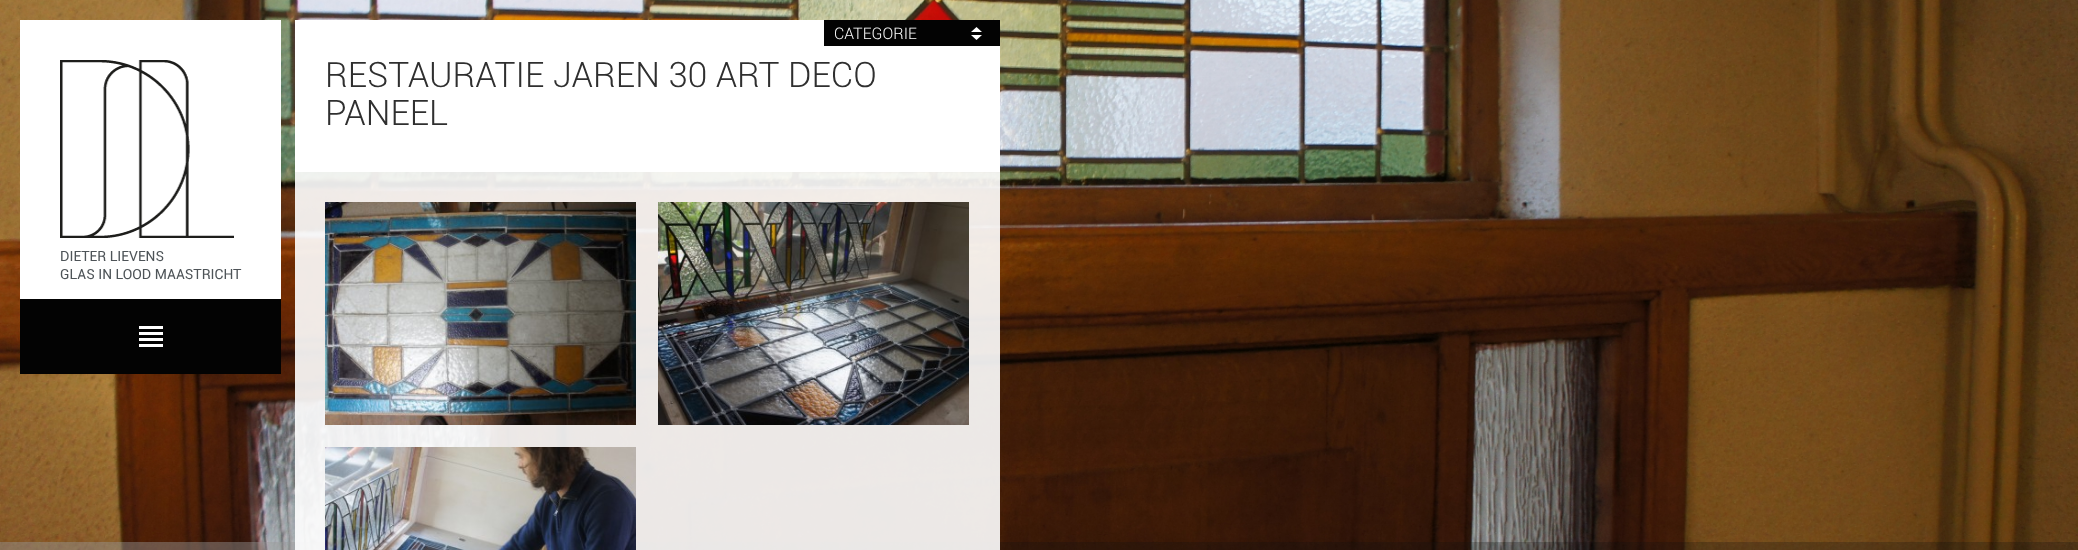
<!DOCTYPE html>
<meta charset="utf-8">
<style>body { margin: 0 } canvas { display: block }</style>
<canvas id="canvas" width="2078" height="550"></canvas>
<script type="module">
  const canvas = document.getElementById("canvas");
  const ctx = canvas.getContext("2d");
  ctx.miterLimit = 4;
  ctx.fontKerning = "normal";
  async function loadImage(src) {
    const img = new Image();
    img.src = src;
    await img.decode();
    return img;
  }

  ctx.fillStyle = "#ffffff";
  ctx.fillRect(0, 0, 2078, 550);
  ctx.drawImage(await loadImage("img1.png"), 0, 0, 2078, 550);
  ctx.fillStyle = "rgba(16, 16, 16, 0.25)";
  ctx.fillRect(0, 542, 2078, 8);
  ctx.fillStyle = "rgba(255, 255, 255, 0.25)";
  ctx.fillRect(0, 542, 325, 8);
  ctx.fillStyle = "rgba(255, 255, 255, 0.9)";
  ctx.fillRect(295, 172, 705, 378);
  ctx.fillStyle = "#ffffff";
  ctx.fillRect(295, 20, 705, 152);
  ctx.fillStyle = "#030303";
  ctx.fillRect(824, 20, 176, 26);
  ctx.font = "300 16px Roboto";
  ctx.fillStyle = "#ffffff";
  ctx.fillText("CATEGORIE", 834, 39);
  ctx.drawImage(await loadImage("img2.png"), 971, 27, 11, 13);
  ctx.font = "300 35px Roboto";
  ctx.fillStyle = "#2f2f2f";
  ctx.fillText("RESTAURATIE JAREN 30 ART DECO", 325, 87);
  ctx.fillText("PANEEL", 325, 125);
  ctx.drawImage(await loadImage("img3.png"), 325, 202, 311, 223);
  ctx.drawImage(await loadImage("img4.png"), 658, 202, 311, 223);
  ctx.drawImage(await loadImage("img5.png"), 325, 447, 311, 103);
  ctx.fillStyle = "#ffffff";
  ctx.fillRect(20, 20, 261, 279);
  ctx.drawImage(await loadImage("img6.png"), 60, 60, 174, 178);
  ctx.font = "14px Roboto";
  ctx.fillStyle = "#4e5458";
  ctx.fillText("DIETER LIEVENS", 60, 261);
  ctx.fillText("GLAS IN LOOD MAASTRICHT", 60, 279);
  ctx.fillStyle = "#030303";
  ctx.fillRect(20, 299, 261, 75);
  ctx.drawImage(await loadImage("img7.png"), 139, 326, 24, 21);
</script>
